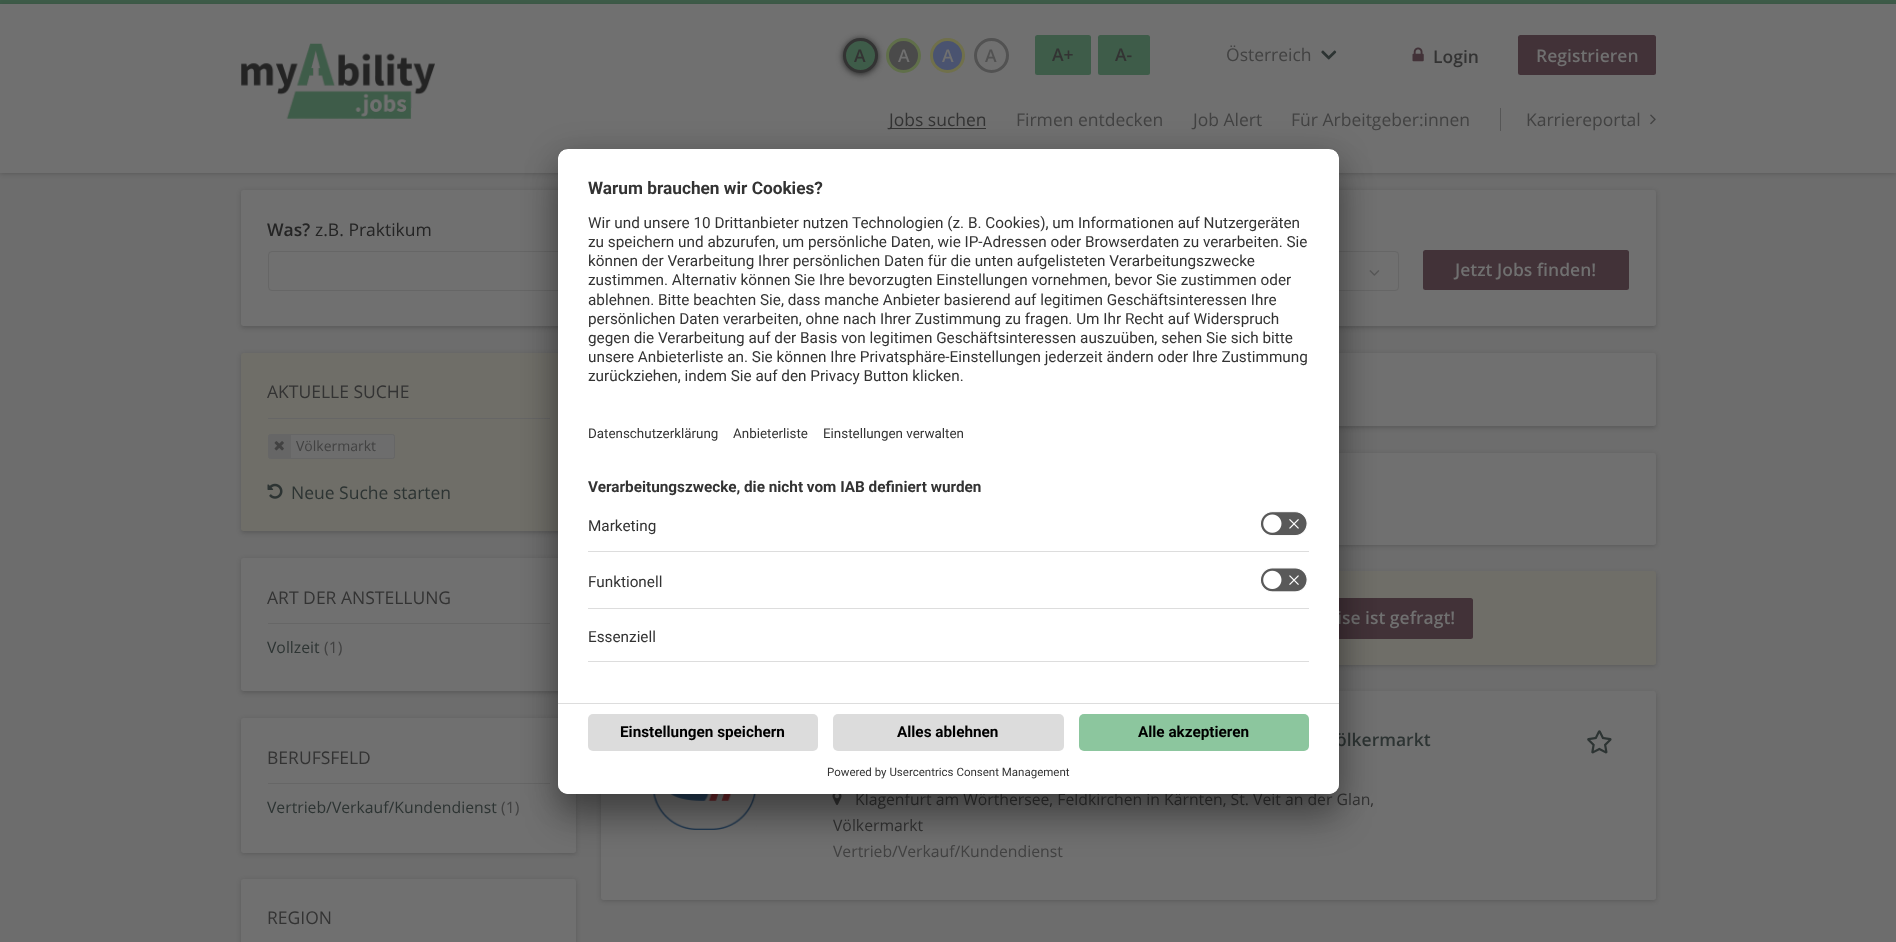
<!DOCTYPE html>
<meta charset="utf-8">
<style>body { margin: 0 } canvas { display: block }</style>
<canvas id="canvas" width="1896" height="942"></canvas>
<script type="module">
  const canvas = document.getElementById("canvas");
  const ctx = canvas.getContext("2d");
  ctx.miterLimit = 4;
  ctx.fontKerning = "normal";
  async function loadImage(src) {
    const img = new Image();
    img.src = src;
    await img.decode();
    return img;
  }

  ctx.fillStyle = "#6d6d6d";
  ctx.fillRect(0, 0, 1896, 942);
  ctx.fillStyle = "#3e5c49";
  ctx.fillRect(0, 0, 1896, 4);
  ctx.fillStyle = "rgba(36, 36, 36, 0.25)";
  ctx.filter = "blur(2px)";
  ctx.beginPath();
  ctx.rect(0, 5, 1896, 169);
  ctx.fill();
  ctx.filter = "none";
  ctx.fillStyle = "#707070";
  ctx.fillRect(0, 4, 1896, 169);
  ctx.drawImage(await loadImage("img1.png"), 241, 43, 194, 76);
  ctx.fillStyle = "#242424";
  ctx.filter = "blur(3px)";
  ctx.beginPath();
  ctx.roundRect(843, 39, 35, 35, 17.5);
  ctx.fill();
  ctx.filter = "none";
  ctx.fillStyle = "#3e5c49";
  ctx.beginPath();
  ctx.arc(860.5, 55.5, 16, 0, Math.PI * 2);
  ctx.fill();
  ctx.strokeStyle = "#333333";
  ctx.lineWidth = 3;
  ctx.stroke();
  ctx.font = "600 17.5px Open Sans";
  ctx.fillStyle = "#333333";
  ctx.fillText("A", 854, 62);
  ctx.fillStyle = "#4a4a4a";
  ctx.beginPath();
  ctx.arc(903.5, 55.5, 16, 0, Math.PI * 2);
  ctx.fill();
  ctx.strokeStyle = "#606f4a";
  ctx.stroke();
  ctx.fillStyle = "#707070";
  ctx.fillText("A", 898, 62);
  ctx.fillStyle = "#4a5370";
  ctx.beginPath();
  ctx.arc(947.5, 55.5, 16, 0, Math.PI * 2);
  ctx.fill();
  ctx.strokeStyle = "#70704b";
  ctx.stroke();
  ctx.fillStyle = "#707070";
  ctx.fillText("A", 942, 62);
  ctx.beginPath();
  ctx.arc(991.5, 55.5, 16, 0, Math.PI * 2);
  ctx.strokeStyle = "#525252";
  ctx.stroke();
  ctx.fillStyle = "#525252";
  ctx.fillText("A", 985, 62);
  ctx.fillStyle = "#3e5c49";
  ctx.beginPath();
  ctx.roundRect(1035, 35, 56, 40, 2.5);
  ctx.fill();
  ctx.fillStyle = "#333333";
  ctx.fillText("A+", 1052, 61);
  ctx.fillStyle = "#3e5c49";
  ctx.beginPath();
  ctx.roundRect(1098, 35, 52, 40, 2.5);
  ctx.fill();
  ctx.fillStyle = "#333333";
  ctx.fillText("A-", 1115, 61);
  ctx.font = "17.5px Open Sans";
  ctx.fillStyle = "#424242";
  ctx.fillText("Österreich", 1226, 61);
  ctx.drawImage(await loadImage("img2.png"), 1321, 50, 16, 10);
  ctx.drawImage(await loadImage("img3.png"), 1412, 47, 12, 15);
  ctx.font = "600 17.5px Open Sans";
  ctx.fillStyle = "#333333";
  ctx.fillText("Login", 1433, 63);
  ctx.fillStyle = "#423238";
  ctx.beginPath();
  ctx.roundRect(1518, 35, 138, 40, 2.5);
  ctx.fill();
  ctx.fillStyle = "#707070";
  ctx.fillText("Registrieren", 1536, 62);
  ctx.fillStyle = "#333333";
  ctx.fillRect(889, 128, 97, 1);
  ctx.font = "17.5px Open Sans";
  ctx.fillText("Jobs suchen", 889, 126);
  ctx.fillStyle = "#424242";
  ctx.fillText("Firmen entdecken", 1016, 126);
  ctx.fillText("Job Alert", 1193, 126);
  ctx.fillText("Für Arbeitgeber:innen", 1291, 126);
  ctx.fillStyle = "#565656";
  ctx.fillRect(1500, 108, 1, 23);
  ctx.fillStyle = "#424242";
  ctx.fillText("Karriereportal", 1526, 126);
  ctx.drawImage(await loadImage("img4.png"), 1650, 114, 6, 11);
  ctx.fillStyle = "rgba(36, 36, 36, 0.25)";
  ctx.filter = "blur(2px)";
  ctx.beginPath();
  ctx.roundRect(241, 191, 1415, 137, 2.5);
  ctx.fill();
  ctx.filter = "none";
  ctx.fillStyle = "#707070";
  ctx.beginPath();
  ctx.roundRect(241, 190, 1415, 136, 2.5);
  ctx.fill();
  ctx.font = "600 17.5px Open Sans";
  ctx.fillStyle = "#242424";
  ctx.fillText("Was?", 267, 236);
  ctx.font = "17.5px Open Sans";
  ctx.fillText("z.B. Praktikum", 315, 236);
  ctx.beginPath();
  ctx.roundRect(268.5, 251.5, 551, 39, 3.5);
  ctx.strokeStyle = "#666666";
  ctx.lineWidth = 1;
  ctx.stroke();
  ctx.beginPath();
  ctx.roundRect(1249.5, 251.5, 149, 39, 3.5);
  ctx.stroke();
  ctx.drawImage(await loadImage("img5.png"), 1369, 270, 11, 6);
  ctx.fillStyle = "#423238";
  ctx.beginPath();
  ctx.roundRect(1423, 250, 206, 40, 2.5);
  ctx.fill();
  ctx.font = "600 17.5px Open Sans";
  ctx.fillStyle = "#707070";
  ctx.fillText("Jetzt Jobs finden!", 1455, 276);
  ctx.fillStyle = "rgba(36, 36, 36, 0.25)";
  ctx.filter = "blur(2px)";
  ctx.beginPath();
  ctx.roundRect(241, 354, 335, 179, 2.5);
  ctx.fill();
  ctx.filter = "none";
  ctx.fillStyle = "#6f6e68";
  ctx.beginPath();
  ctx.roundRect(241, 353, 335, 178, 2.5);
  ctx.fill();
  ctx.fillStyle = "#666666";
  ctx.fillRect(268, 418, 282, 1);
  ctx.font = "17.5px Open Sans";
  ctx.fillStyle = "#333333";
  ctx.fillText("AKTUELLE SUCHE", 267, 398);
  ctx.fillStyle = "#6d6d6d";
  ctx.beginPath();
  ctx.roundRect(268.5, 434.5, 126, 24, 2);
  ctx.fill();
  ctx.stroke();
  ctx.fillStyle = "#666666";
  ctx.fillRect(269, 435, 22, 23);
  ctx.drawImage(await loadImage("img6.png"), 274, 441, 10, 10);
  ctx.font = "14px Open Sans";
  ctx.fillStyle = "#424242";
  ctx.fillText("Völkermarkt", 296, 451);
  ctx.drawImage(await loadImage("img7.png"), 267, 483, 16, 16);
  ctx.font = "17.5px Open Sans";
  ctx.fillStyle = "#2d3433";
  ctx.fillText("Neue Suche starten", 291, 499);
  ctx.fillStyle = "rgba(36, 36, 36, 0.25)";
  ctx.filter = "blur(2px)";
  ctx.beginPath();
  ctx.roundRect(241, 559, 335, 134, 2.5);
  ctx.fill();
  ctx.filter = "none";
  ctx.fillStyle = "#707070";
  ctx.beginPath();
  ctx.roundRect(241, 558, 335, 133, 2.5);
  ctx.fill();
  ctx.fillStyle = "#666666";
  ctx.fillRect(268, 623, 282, 1);
  ctx.fillStyle = "#333333";
  ctx.fillText("ART DER ANSTELLUNG", 267, 604);
  ctx.font = "15.75px Open Sans";
  ctx.fillStyle = "#2d3433";
  ctx.fillText("Vollzeit", 267, 653);
  ctx.fillStyle = "#424242";
  ctx.fillText("(1)", 324, 653);
  ctx.fillStyle = "rgba(36, 36, 36, 0.25)";
  ctx.filter = "blur(2px)";
  ctx.beginPath();
  ctx.roundRect(241, 719, 335, 135, 2.5);
  ctx.fill();
  ctx.filter = "none";
  ctx.fillStyle = "#707070";
  ctx.beginPath();
  ctx.roundRect(241, 718, 335, 135, 2.5);
  ctx.fill();
  ctx.fillStyle = "#666666";
  ctx.fillRect(268, 783, 282, 1);
  ctx.font = "17.5px Open Sans";
  ctx.fillStyle = "#333333";
  ctx.fillText("BERUFSFELD", 267, 764);
  ctx.font = "15.75px Open Sans";
  ctx.fillStyle = "#2d3433";
  ctx.fillText("Vertrieb/Verkauf/Kundendienst", 267, 813);
  ctx.fillStyle = "#424242";
  ctx.fillText("(1)", 501, 813);
  ctx.fillStyle = "rgba(36, 36, 36, 0.25)";
  ctx.filter = "blur(2px)";
  ctx.beginPath();
  ctx.roundRect(241, 880, 335, 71, 2.5);
  ctx.fill();
  ctx.filter = "none";
  ctx.fillStyle = "#707070";
  ctx.beginPath();
  ctx.roundRect(241, 879, 335, 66, 2.5);
  ctx.fill();
  ctx.font = "17.5px Open Sans";
  ctx.fillStyle = "#333333";
  ctx.fillText("REGION", 267, 924);
  ctx.fillStyle = "rgba(36, 36, 36, 0.25)";
  ctx.filter = "blur(2px)";
  ctx.beginPath();
  ctx.roundRect(601, 354, 1055, 74, 2.5);
  ctx.fill();
  ctx.filter = "none";
  ctx.fillStyle = "#707070";
  ctx.beginPath();
  ctx.roundRect(601, 353, 1055, 73, 2.5);
  ctx.fill();
  ctx.fillStyle = "rgba(36, 36, 36, 0.25)";
  ctx.filter = "blur(2px)";
  ctx.beginPath();
  ctx.roundRect(601, 454, 1055, 92, 2.5);
  ctx.fill();
  ctx.filter = "none";
  ctx.fillStyle = "#707070";
  ctx.beginPath();
  ctx.roundRect(601, 453, 1055, 92, 2.5);
  ctx.fill();
  ctx.fillStyle = "rgba(36, 36, 36, 0.25)";
  ctx.filter = "blur(2px)";
  ctx.beginPath();
  ctx.roundRect(601, 573, 1055, 93, 2.5);
  ctx.fill();
  ctx.filter = "none";
  ctx.fillStyle = "#6f6e68";
  ctx.beginPath();
  ctx.roundRect(601, 571, 1055, 94, 2.5);
  ctx.fill();
  ctx.fillStyle = "#423238";
  ctx.beginPath();
  ctx.roundRect(1185, 598, 288, 41, 2.5);
  ctx.fill();
  ctx.font = "600 17.5px Open Sans";
  ctx.fillStyle = "#707070";
  ctx.fillText("ise ist gefragt!", 1337, 624);
  ctx.fillStyle = "rgba(36, 36, 36, 0.25)";
  ctx.filter = "blur(2px)";
  ctx.beginPath();
  ctx.roundRect(601, 693, 1055, 208, 2.5);
  ctx.fill();
  ctx.filter = "none";
  ctx.fillStyle = "#707070";
  ctx.beginPath();
  ctx.roundRect(601, 691, 1055, 209, 2.5);
  ctx.fill();
  ctx.drawImage(await loadImage("img8.png"), 652, 794, 105, 36);
  ctx.fillStyle = "#2d3433";
  ctx.fillText("ölkermarkt", 1336, 746);
  ctx.drawImage(await loadImage("img9.png"), 832, 794, 10, 11);
  ctx.font = "15.75px Open Sans";
  ctx.fillStyle = "#333333";
  ctx.fillText("Klagenfurt am Wörthersee, Feldkirchen in Kärnten, St. Veit an der Glan,", 855, 805);
  ctx.fillText("Völkermarkt", 833, 831);
  ctx.fillStyle = "#424242";
  ctx.fillText("Vertrieb/Verkauf/Kundendienst", 833, 857);
  ctx.drawImage(await loadImage("img10.png"), 1587, 730, 25, 24);
  ctx.fillStyle = "rgba(0, 0, 0, 0.3)";
  ctx.filter = "blur(17.5px)";
  ctx.beginPath();
  ctx.roundRect(558, 174, 781, 645, 10);
  ctx.fill();
  ctx.filter = "none";
  ctx.fillStyle = "rgba(0, 0, 0, 0.22)";
  ctx.filter = "blur(16px)";
  ctx.beginPath();
  ctx.roundRect(558, 155, 781, 645, 10);
  ctx.fill();
  ctx.filter = "none";
  ctx.fillStyle = "#ffffff";
  ctx.beginPath();
  ctx.roundRect(558, 149, 781, 645, 10);
  ctx.fill();
  ctx.save();
  ctx.beginPath();
  ctx.roundRect(558, 149, 781, 645, 10);
  ctx.clip();
  ctx.beginPath();
  ctx.roundRect(558, 149, 781, 554, [10, 10, 0, 0]);
  ctx.clip();
  ctx.fillRect(558, 150, 781, 553);
  ctx.fillRect(558, 150, 781, 314);
  ctx.restore();
  ctx.font = "bold 17.25px Roboto";
  ctx.fillStyle = "#333333";
  ctx.fillText("Warum brauchen wir Cookies?", 588, 194);
  ctx.font = "15.3px Roboto";
  ctx.fillText("Wir und unsere 10 Drittanbieter nutzen Technologien (z. B. Cookies), um Informationen auf Nutzergeräten", 588, 228);
  ctx.fillText("zu speichern und abzurufen, um persönliche Daten, wie IP-Adressen oder Browserdaten zu verarbeiten. Sie", 588, 247);
  ctx.fillText("können der Verarbeitung Ihrer persönlichen Daten für die unten aufgelisteten Verarbeitungszwecke", 588, 266);
  ctx.fillText("zustimmen. Alternativ können Sie Ihre bevorzugten Einstellungen vornehmen, bevor Sie zustimmen oder", 588, 285);
  ctx.fillText("ablehnen. Bitte beachten Sie, dass manche Anbieter basierend auf legitimen Geschäftsinteressen Ihre", 588, 305);
  ctx.fillText("persönlichen Daten verarbeiten, ohne nach Ihrer Zustimmung zu fragen. Um Ihr Recht auf Widerspruch", 588, 324);
  ctx.fillText("gegen die Verarbeitung auf der Basis von legitimen Geschäftsinteressen auszuüben, sehen Sie sich bitte", 588, 343);
  ctx.fillText("unsere Anbieterliste an. Sie können Ihre Privatsphäre-Einstellungen jederzeit ändern oder Ihre Zustimmung", 588, 362);
  ctx.fillText("zurückziehen, indem Sie auf den Privacy Button klicken.", 588, 381);
  ctx.font = "13.4px Roboto";
  ctx.fillText("Datenschutzerklärung", 588, 438);
  ctx.fillText("Anbieterliste", 733, 438);
  ctx.fillText("Einstellungen verwalten", 823, 438);
  ctx.font = "bold 15.3px Roboto";
  ctx.fillText("Verarbeitungszwecke, die nicht vom IAB definiert wurden", 588, 492);
  ctx.fillStyle = "#dddddd";
  ctx.fillRect(588, 551, 721, 1);
  ctx.font = "15.3px Roboto";
  ctx.fillStyle = "#333333";
  ctx.fillText("Marketing", 588, 531);
  ctx.drawImage(await loadImage("img11.png"), 1260, 511, 48, 25);
  ctx.fillStyle = "#dddddd";
  ctx.fillRect(588, 608, 721, 1);
  ctx.fillStyle = "#333333";
  ctx.fillText("Funktionell", 588, 587);
  ctx.drawImage(await loadImage("img12.png"), 1260, 567, 48, 25);
  ctx.fillStyle = "#dddddd";
  ctx.fillRect(588, 661, 721, 1);
  ctx.fillStyle = "#333333";
  ctx.fillText("Essenziell", 588, 642);
  ctx.fillStyle = "#ffffff";
  ctx.beginPath();
  ctx.roundRect(558, 703, 781, 91, [0, 0, 10, 10]);
  ctx.fill();
  ctx.fillStyle = "#dddddd";
  ctx.fillRect(558, 703, 781, 1);
  ctx.fillStyle = "#dcdcdc";
  ctx.beginPath();
  ctx.roundRect(588, 714, 230, 37, 5);
  ctx.fill();
  ctx.font = "bold 15.3px Roboto";
  ctx.fillStyle = "#000000";
  ctx.fillText("Einstellungen speichern", 620, 737);
  ctx.fillStyle = "#dcdcdc";
  ctx.beginPath();
  ctx.roundRect(833, 714, 231, 37, 5);
  ctx.fill();
  ctx.fillStyle = "#000000";
  ctx.fillText("Alles ablehnen", 897, 737);
  ctx.fillStyle = "#8cc69e";
  ctx.beginPath();
  ctx.roundRect(1079, 714, 230, 37, 5);
  ctx.fill();
  ctx.fillStyle = "#000000";
  ctx.fillText("Alle akzeptieren", 1138, 737);
  ctx.font = "11.5px Roboto";
  ctx.fillStyle = "#333333";
  ctx.fillText("Powered by Usercentrics Consent Management", 827, 776);
</script>
